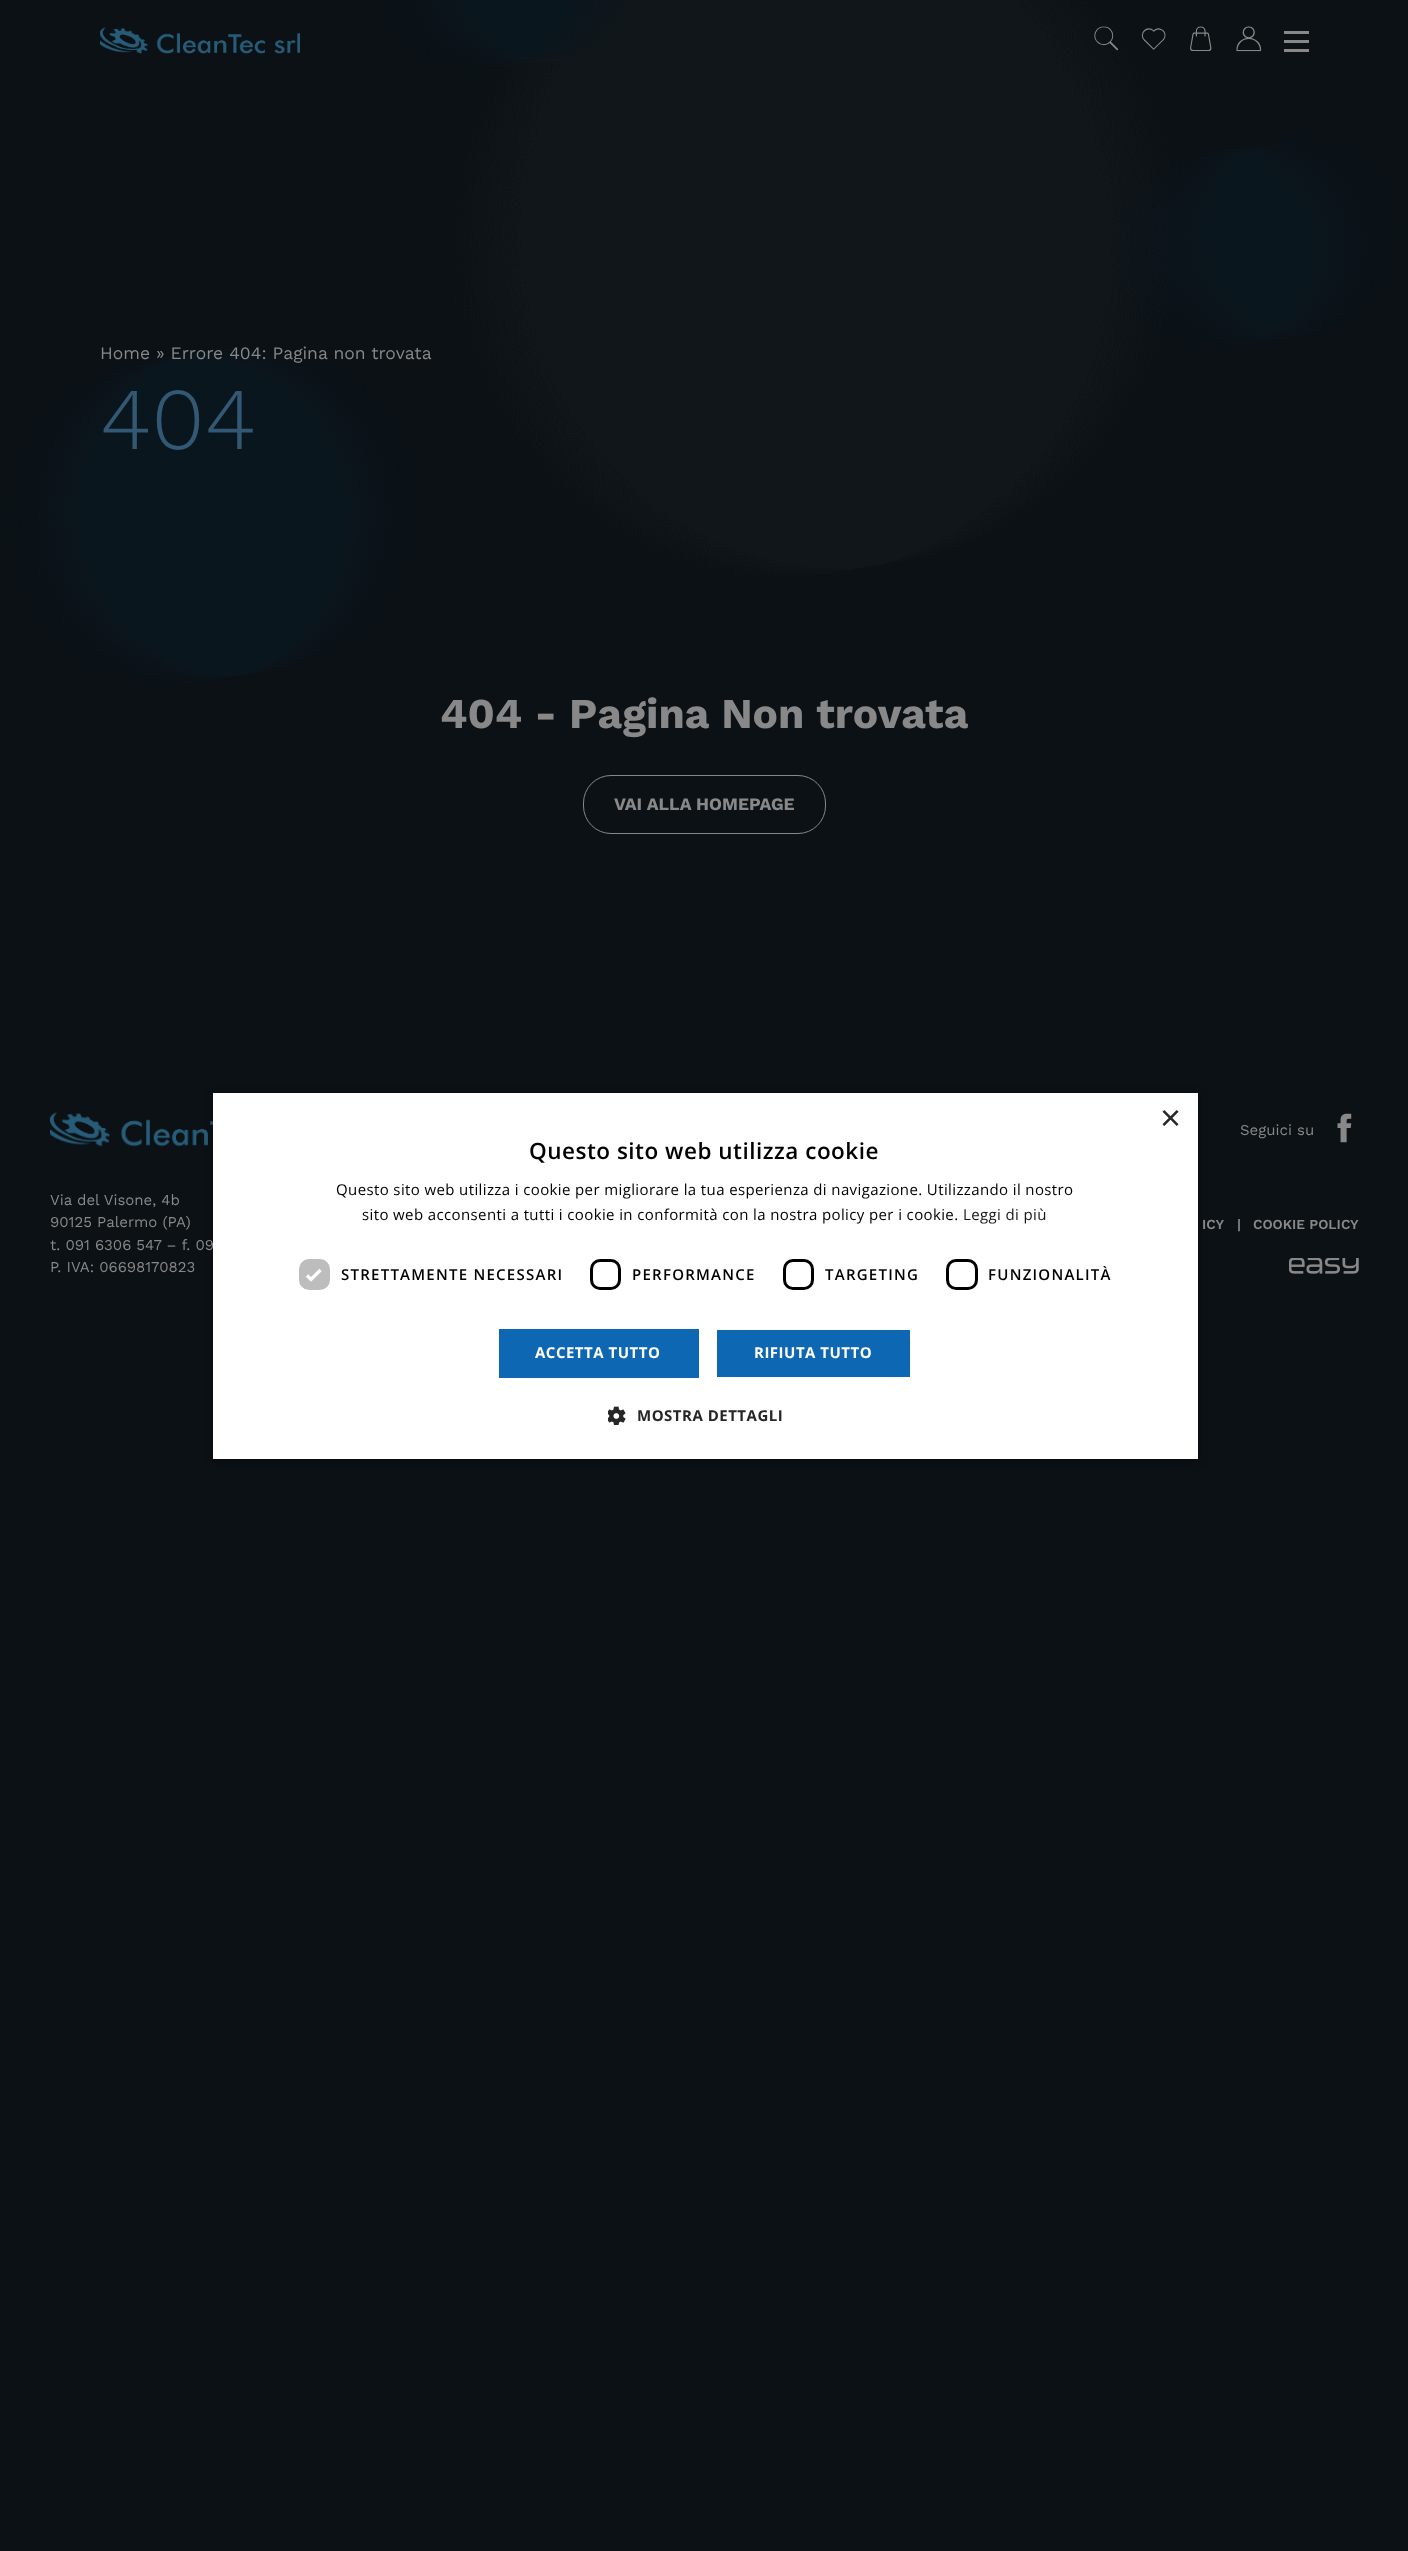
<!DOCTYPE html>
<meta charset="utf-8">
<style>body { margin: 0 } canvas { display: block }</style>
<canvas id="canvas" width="1408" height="2551"></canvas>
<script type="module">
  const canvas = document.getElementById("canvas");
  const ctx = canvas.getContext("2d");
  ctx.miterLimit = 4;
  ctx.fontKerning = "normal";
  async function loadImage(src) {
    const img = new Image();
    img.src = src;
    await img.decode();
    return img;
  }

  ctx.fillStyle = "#0b1115";
  ctx.fillRect(0, 0, 1408, 2551);
  ctx.drawImage(await loadImage("img6.png"), 4, 0, 1401, 686);
  ctx.drawImage(await loadImage("img1.png"), 100, 27, 200, 27);
  ctx.drawImage(await loadImage("img2.png"), 1094, 26, 25, 25);
  ctx.drawImage(await loadImage("img3.png"), 1141, 28, 25, 22);
  ctx.drawImage(await loadImage("img4.png"), 1190, 26, 22, 25);
  ctx.drawImage(await loadImage("img5.png"), 1236, 26, 26, 26);
  ctx.fillStyle = "#888888";
  ctx.fillRect(1284, 31, 25, 3);
  ctx.fillRect(1284, 40, 25, 3);
  ctx.fillRect(1284, 49, 25, 3);
  ctx.font = "17.5px Work Sans";
  ctx.fillText("Home » Errore 404: Pagina non trovata", 100, 359);
  ctx.font = "300 88px Work Sans";
  ctx.fillStyle = "#325873";
  ctx.fillText("404", 100, 449);
  ctx.font = "bold 42.5px Work Sans";
  ctx.fillStyle = "#888888";
  ctx.fillText("404 - Pagina Non trovata", 440, 728);
  ctx.beginPath();
  ctx.roundRect(583.5, 775.5, 242, 58, 27.5);
  ctx.strokeStyle = "#888888";
  ctx.stroke();
  ctx.font = "bold 17.5px Work Sans";
  ctx.fillText("VAI ALLA HOMEPAGE", 614, 810);
  ctx.drawImage(await loadImage("img8.png"), 50, 1112, 163, 35);
  ctx.fillStyle = "rgba(0, 0, 0, 0.35)";
  ctx.filter = "blur(5px)";
  ctx.beginPath();
  ctx.rect(214, 1095, 985, 366);
  ctx.fill();
  ctx.filter = "none";
  ctx.font = "15px Work Sans";
  ctx.fillStyle = "#888888";
  ctx.fillText("t. 091 6306 547 – f. 09", 50, 1250);
  ctx.fillStyle = "#ffffff";
  ctx.fillRect(213, 1093, 985, 366);
  ctx.font = "36px Liberation Sans";
  ctx.fillStyle = "#262626";
  ctx.fillText("×", 1160, 1130);
  ctx.letterSpacing = "0.5px";
  ctx.font = "600 22.5px Open Sans";
  ctx.fillStyle = "#000000";
  ctx.fillText("Questo sito web utilizza cookie", 529, 1159);
  ctx.letterSpacing = "0.38px";
  ctx.font = "15px Open Sans";
  ctx.fillText("Questo sito web utilizza i cookie per migliorare la tua esperienza di navigazione. Utilizzando il nostro", 336, 1195);
  ctx.fillText("sito web acconsenti a tutti i cookie in conformità con la nostra policy per i cookie.", 362, 1220);
  ctx.fillStyle = "#161616";
  ctx.fillText("Leggi di più", 963, 1220);
  ctx.fillStyle = "#bdbdbd";
  ctx.beginPath();
  ctx.roundRect(299, 1259, 31, 31, 10);
  ctx.fill();
  ctx.beginPath();
  ctx.moveTo(307, 1275.5);
  ctx.lineTo(311, 1279.5);
  ctx.lineTo(320.5, 1270);
  ctx.strokeStyle = "#ffffff";
  ctx.lineWidth = 3.3;
  ctx.stroke();
  ctx.letterSpacing = "1.25px";
  ctx.font = "600 15px Open Sans";
  ctx.fillStyle = "#000000";
  ctx.fillText("STRETTAMENTE NECESSARI", 341, 1280);
  ctx.beginPath();
  ctx.roundRect(591.5, 1260.5, 28, 28, 8.5);
  ctx.strokeStyle = "#000000";
  ctx.lineWidth = 3;
  ctx.stroke();
  ctx.fillText("PERFORMANCE", 632, 1280);
  ctx.beginPath();
  ctx.roundRect(784.5, 1260.5, 28, 28, 8.5);
  ctx.stroke();
  ctx.fillText("TARGETING", 825, 1280);
  ctx.beginPath();
  ctx.roundRect(947.5, 1260.5, 29, 28, 8.5);
  ctx.stroke();
  ctx.fillText("FUNZIONALITÀ", 988, 1280);
  ctx.fillStyle = "#0e67b2";
  ctx.fillRect(499, 1329, 200, 49);
  ctx.letterSpacing = "0.5px";
  ctx.font = "bold 15px Open Sans";
  ctx.fillStyle = "#ffffff";
  ctx.fillText("ACCETTA TUTTO", 535, 1358);
  ctx.fillStyle = "#0e67b2";
  ctx.fillRect(717, 1330, 193, 47);
  ctx.fillStyle = "#ffffff";
  ctx.fillText("RIFIUTA TUTTO", 754, 1358);
  ctx.drawImage(await loadImage("img7.png"), 608, 1406, 18, 19);
  ctx.fillStyle = "#262626";
  ctx.fillText("MOSTRA DETTAGLI", 637, 1421);
  ctx.letterSpacing = "0px";
  ctx.font = "15px Work Sans";
  ctx.fillStyle = "#888888";
  ctx.fillText("Via del Visone, 4b", 50, 1205);
  ctx.fillText("90125 Palermo (PA)", 50, 1227);
  ctx.fillText("P. IVA: 06698170823", 50, 1272);
  ctx.fillText("Seguici su", 1240, 1135);
  ctx.drawImage(await loadImage("img9.png"), 1337, 1113, 15, 30);
  ctx.font = "600 13.75px Work Sans";
  ctx.fillText("ICY", 1202, 1229);
  ctx.fillText("|", 1237, 1229);
  ctx.fillText("COOKIE POLICY", 1253, 1229);
  ctx.drawImage(await loadImage("img10.png"), 1289, 1258, 70, 16);
</script>
